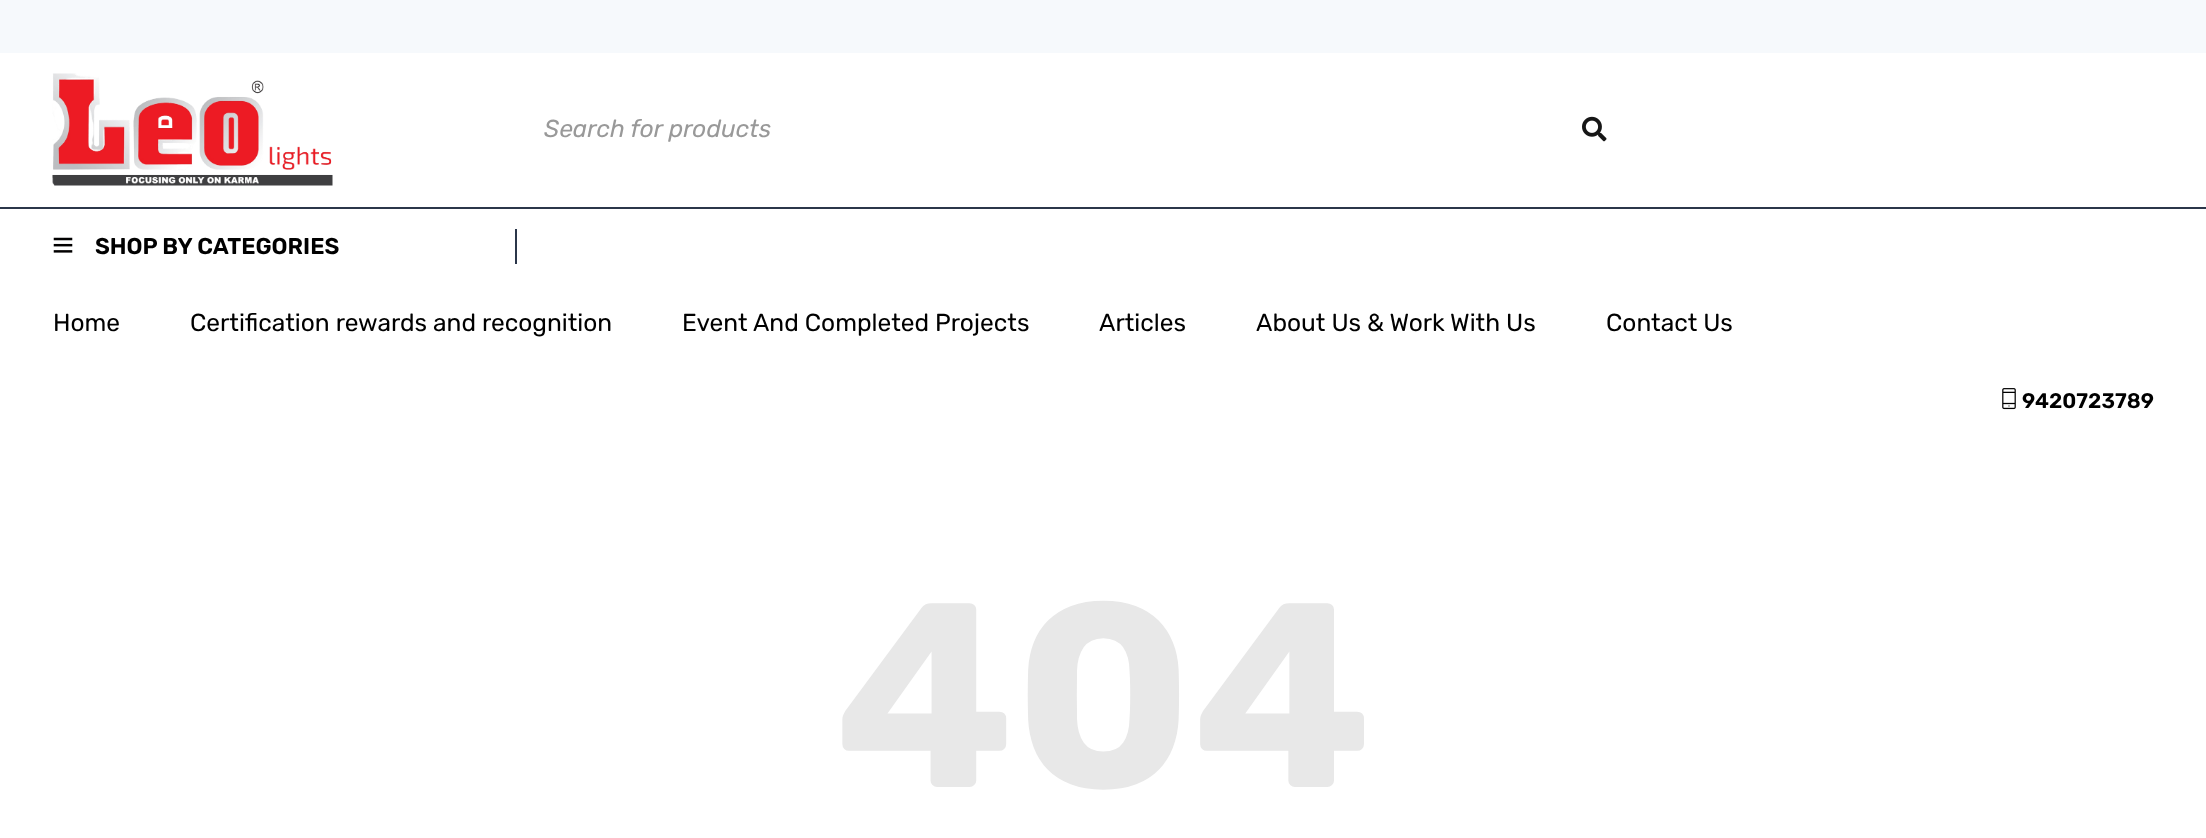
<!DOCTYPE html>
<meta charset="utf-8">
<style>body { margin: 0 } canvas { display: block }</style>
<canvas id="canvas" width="2206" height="838"></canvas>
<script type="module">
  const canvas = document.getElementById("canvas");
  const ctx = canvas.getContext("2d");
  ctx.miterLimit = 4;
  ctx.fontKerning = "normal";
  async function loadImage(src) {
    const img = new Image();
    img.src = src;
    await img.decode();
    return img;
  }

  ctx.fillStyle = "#ffffff";
  ctx.fillRect(0, 0, 2206, 838);
  ctx.fillStyle = "#f6f9fc";
  ctx.fillRect(0, 0, 2206, 53);
  ctx.drawImage(await loadImage("img1.png"), 52, 73, 281, 113);
  ctx.font = "italic 24.5px Rubik";
  ctx.fillStyle = "#999999";
  ctx.fillText("Search for products", 544, 137);
  ctx.drawImage(await loadImage("img2.png"), 1582, 116, 25, 26);
  ctx.fillStyle = "#2b364a";
  ctx.fillRect(0, 207, 2206, 2);
  ctx.drawImage(await loadImage("img3.png"), 53, 237, 20, 16);
  ctx.font = "600 22.75px Rubik";
  ctx.fillStyle = "#000000";
  ctx.fillText("SHOP BY CATEGORIES", 95, 254);
  ctx.fillStyle = "#2b364a";
  ctx.fillRect(515, 229, 2, 35);
  ctx.font = "24.5px Rubik";
  ctx.fillStyle = "#000000";
  ctx.fillText("Home", 53, 331);
  ctx.fillText("Certification rewards and recognition", 190, 331);
  ctx.fillText("Event And Completed Projects", 682, 331);
  ctx.fillText("Articles", 1099, 331);
  ctx.fillText("About Us & Work With Us", 1256, 331);
  ctx.fillText("Contact Us", 1606, 331);
  ctx.drawImage(await loadImage("img4.png"), 2002, 388, 14, 22);
  ctx.font = "600 21px Rubik";
  ctx.fillText("9420723789", 2022, 408);
  ctx.font = "bold 262.5px Rubik";
  ctx.fillStyle = "#e8e8e8";
  ctx.fillText("404", 835, 787);
</script>
